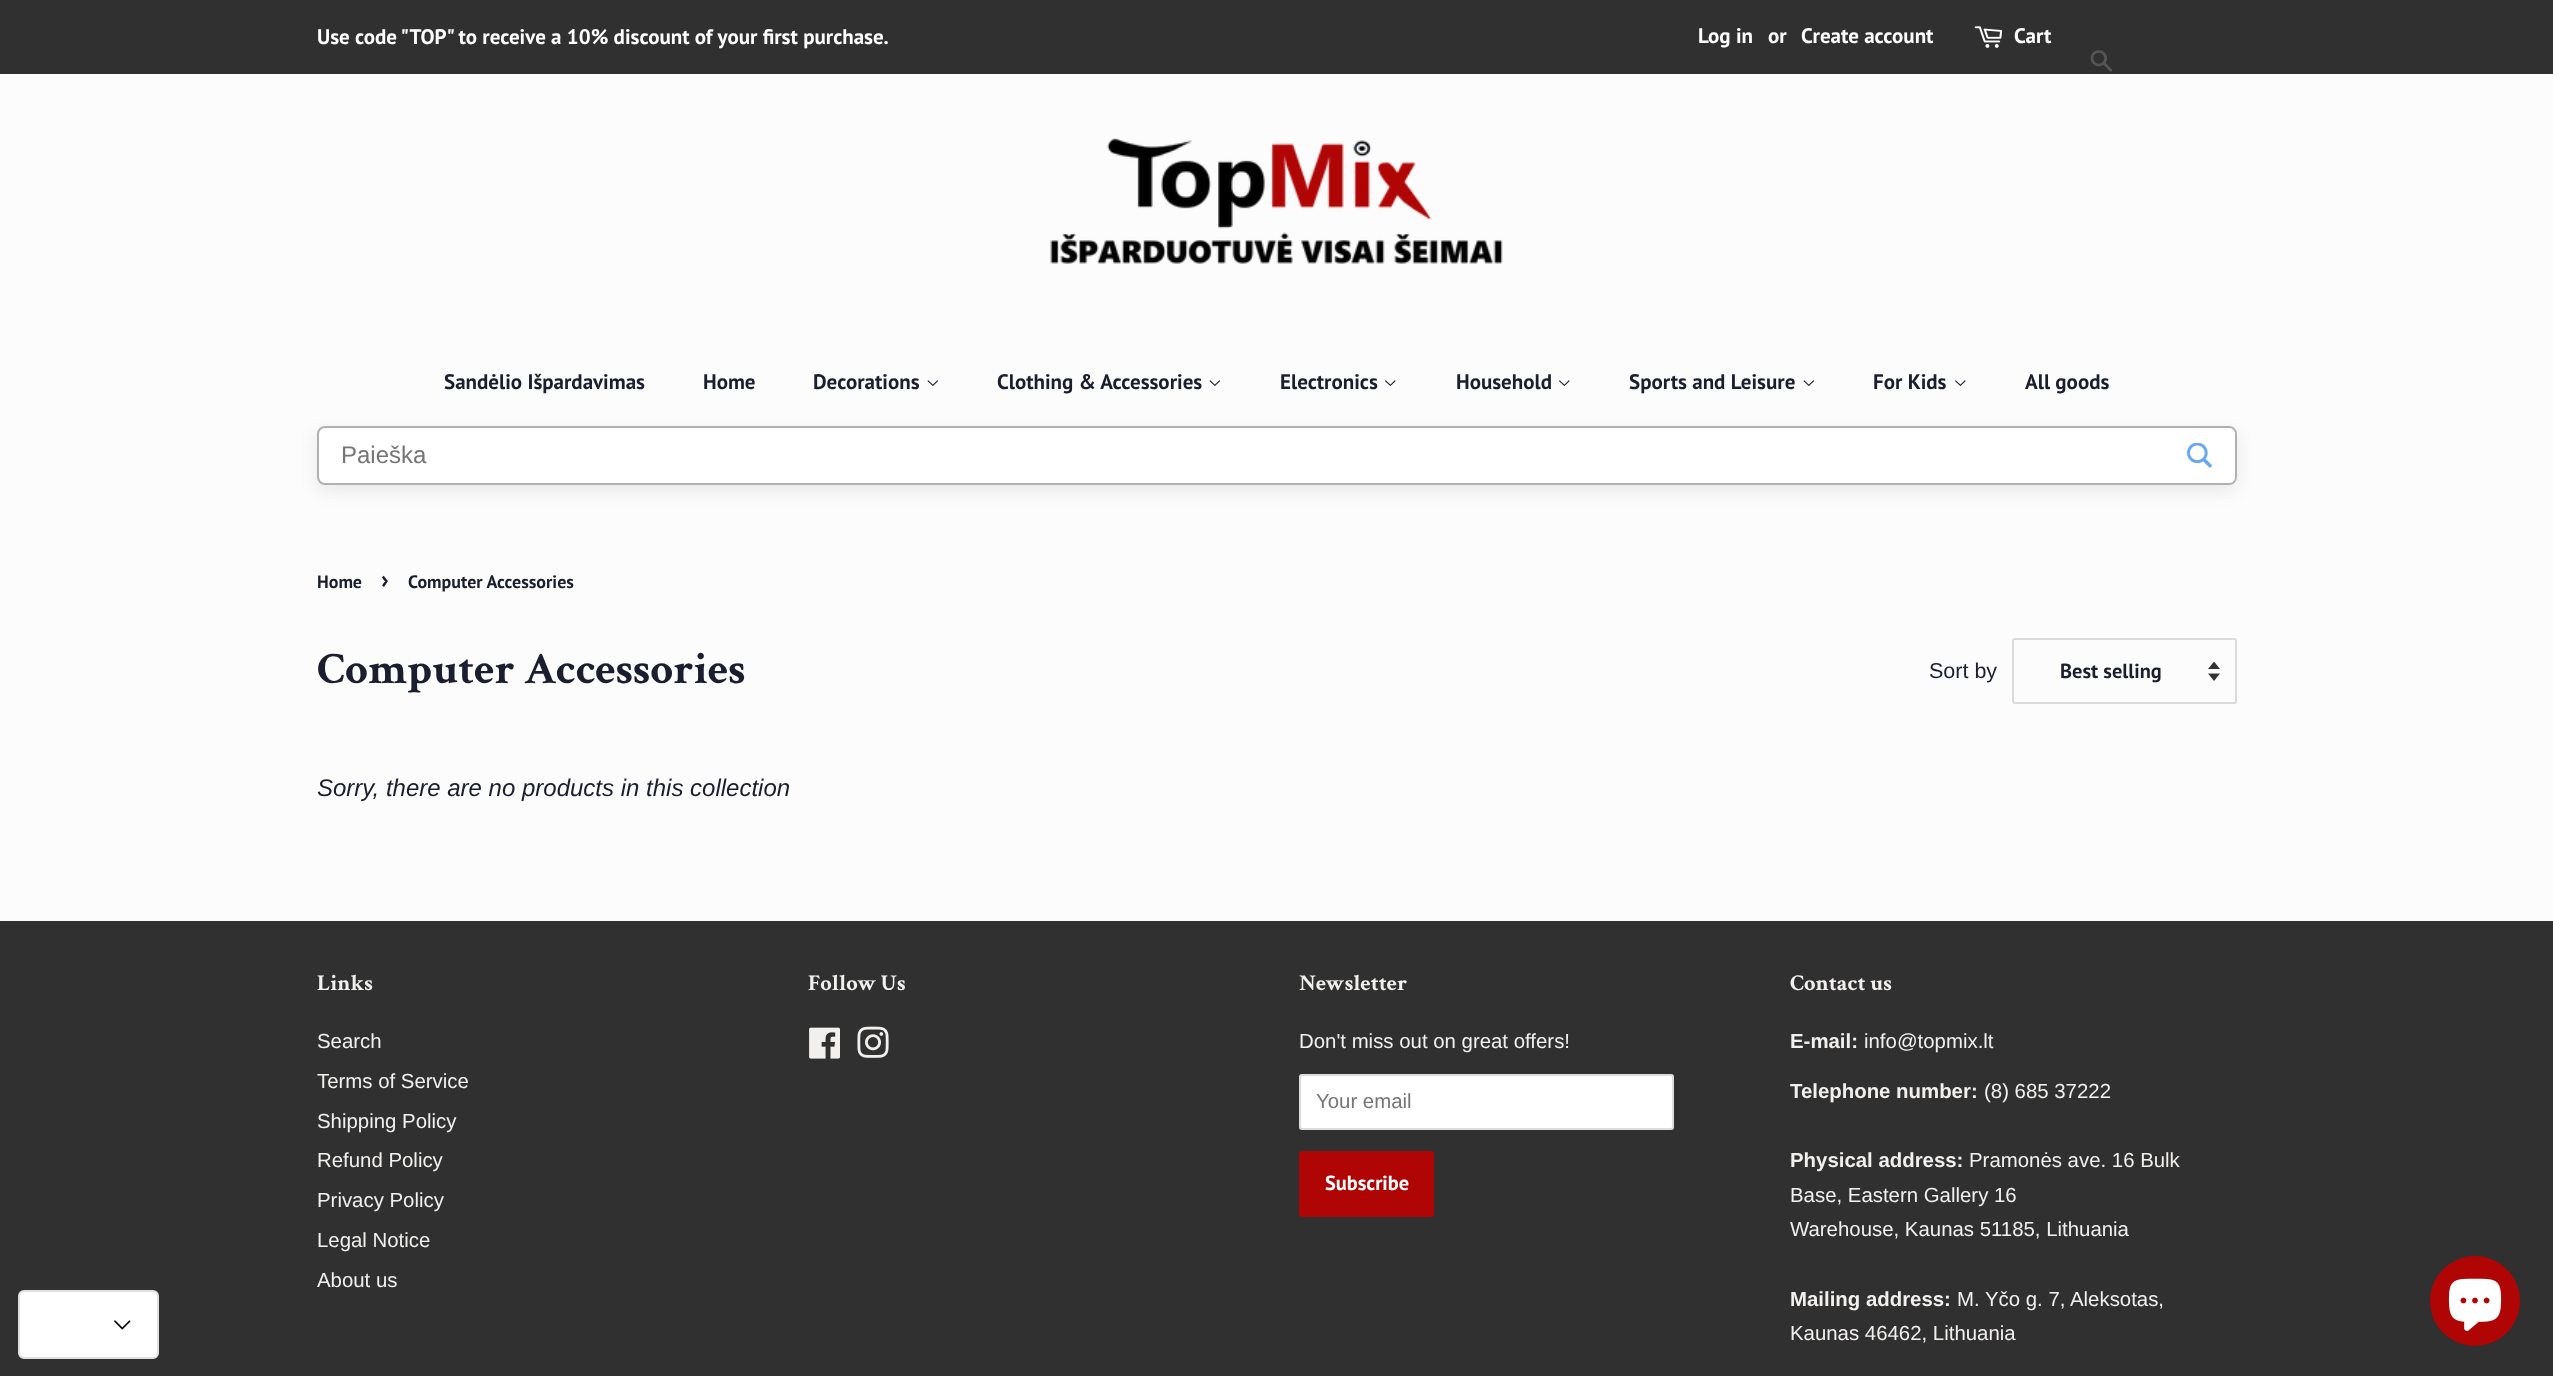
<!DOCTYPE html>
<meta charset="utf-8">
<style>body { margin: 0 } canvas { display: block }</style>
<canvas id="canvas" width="2553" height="1376"></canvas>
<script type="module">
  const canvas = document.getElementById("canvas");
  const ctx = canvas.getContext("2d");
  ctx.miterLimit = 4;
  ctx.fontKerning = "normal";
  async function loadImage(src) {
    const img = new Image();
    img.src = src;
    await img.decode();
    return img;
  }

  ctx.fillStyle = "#fcfcfc";
  ctx.fillRect(0, 0, 2553, 1376);
  ctx.fillStyle = "#303030";
  ctx.fillRect(0, 0, 2553, 74);
  ctx.font = "bold 21px PT Sans";
  ctx.fillStyle = "#ffffff";
  ctx.fillText("Use code \"TOP\" to receive a 10% discount of your first purchase.", 317, 44);
  ctx.fillText("Log in", 1698, 43);
  ctx.fillText("or", 1768, 43);
  ctx.fillText("Create account", 1801, 43);
  ctx.drawImage(await loadImage("img1.png"), 1974, 26, 29, 22);
  ctx.fillText("Cart", 2014, 43);
  ctx.drawImage(await loadImage("img2.png"), 2090, 50, 23, 22);
  ctx.drawImage(await loadImage("img3.png"), 1050, 138, 453, 126);
  ctx.fillStyle = "#1b1e2f";
  ctx.fillText("Sandėlio Išpardavimas", 444, 389);
  ctx.fillText("Home", 703, 389);
  ctx.fillText("Decorations", 813, 389);
  ctx.drawImage(await loadImage("img4.png"), 927, 380, 11, 6);
  ctx.fillText("Clothing & Accessories", 997, 389);
  ctx.drawImage(await loadImage("img4.png"), 1209, 380, 11, 6);
  ctx.fillText("Electronics", 1280, 389);
  ctx.drawImage(await loadImage("img5.png"), 1385, 380, 11, 6);
  ctx.fillText("Household", 1456, 389);
  ctx.drawImage(await loadImage("img5.png"), 1559, 380, 11, 6);
  ctx.fillText("Sports and Leisure", 1629, 389);
  ctx.drawImage(await loadImage("img4.png"), 1803, 380, 11, 6);
  ctx.fillText("For Kids", 1873, 389);
  ctx.drawImage(await loadImage("img5.png"), 1955, 380, 11, 6);
  ctx.fillText("All goods", 2025, 389);
  ctx.fillStyle = "rgba(0, 0, 0, 0.08)";
  ctx.filter = "blur(9px)";
  ctx.beginPath();
  ctx.roundRect(317, 432, 1920, 59, 8);
  ctx.fill();
  ctx.filter = "none";
  ctx.fillStyle = "#ffffff";
  ctx.beginPath();
  ctx.roundRect(318, 427, 1918, 57, 7);
  ctx.fill();
  ctx.strokeStyle = "#b0b0b0";
  ctx.lineWidth = 2;
  ctx.stroke();
  ctx.font = "24px Liberation Sans";
  ctx.fillStyle = "#757575";
  ctx.fillText("Paieška", 341, 463);
  ctx.fillStyle = "#ffffff";
  ctx.beginPath();
  ctx.roundRect(2165, 428, 70, 55, [0, 6, 6, 0]);
  ctx.fill();
  ctx.drawImage(await loadImage("img6.png"), 2187, 443, 26, 25);
  ctx.font = "bold 18px PT Sans";
  ctx.fillStyle = "#1b1e2f";
  ctx.fillText("Home", 317, 588);
  ctx.font = "bold 25px PT Sans";
  ctx.fillText("›", 381, 588);
  ctx.font = "bold 18px PT Sans";
  ctx.fillText("Computer Accessories", 408, 588);
  ctx.font = "bold 45px Crimson Text";
  ctx.fillText("Computer Accessories", 317, 683);
  ctx.font = "21.5px Liberation Sans";
  ctx.fillText("Sort by", 1929, 678);
  ctx.drawImage(await loadImage("img7.png"), 2208, 662, 12, 19);
  ctx.beginPath();
  ctx.roundRect(2013, 639, 223, 64, 2);
  ctx.strokeStyle = "#dadbdd";
  ctx.stroke();
  ctx.font = "bold 20.4px PT Sans";
  ctx.fillText("Best selling", 2060, 678);
  ctx.font = "italic 24px Liberation Sans";
  ctx.fillText("Sorry, there are no products in this collection", 317, 796);
  ctx.fillStyle = "#303030";
  ctx.fillRect(0, 921, 2553, 455);
  ctx.fillStyle = "#ffffff";
  ctx.beginPath();
  ctx.roundRect(19, 1291, 139, 67, 5);
  ctx.fill();
  ctx.strokeStyle = "#e0e0e0";
  ctx.stroke();
  ctx.drawImage(await loadImage("img8.png"), 114, 1320, 17, 10);
  ctx.font = "bold 22.5px Crimson Text";
  ctx.fillStyle = "#f2f0ee";
  ctx.fillText("Links", 317, 990);
  ctx.font = "20.4px Liberation Sans";
  ctx.fillText("Search", 317, 1048);
  ctx.fillText("Terms of Service", 317, 1088);
  ctx.fillText("Shipping Policy", 317, 1128);
  ctx.fillText("Refund Policy", 317, 1167);
  ctx.fillText("Privacy Policy", 317, 1207);
  ctx.fillText("Legal Notice", 317, 1247);
  ctx.fillText("About us", 317, 1287);
  ctx.font = "bold 22.5px Crimson Text";
  ctx.fillText("Follow Us", 808, 990);
  ctx.drawImage(await loadImage("img9.png"), 809, 1027, 31, 32);
  ctx.drawImage(await loadImage("img10.png"), 857, 1026, 32, 32);
  ctx.fillText("Newsletter", 1299, 990);
  ctx.font = "20.4px Liberation Sans";
  ctx.fillText("Don't miss out on great offers!", 1299, 1048);
  ctx.fillStyle = "#ffffff";
  ctx.beginPath();
  ctx.roundRect(1299, 1074, 375, 56, 3);
  ctx.fill();
  ctx.beginPath();
  ctx.roundRect(1300, 1075, 373, 54, 2);
  ctx.strokeStyle = "rgba(27, 30, 47, 0.15)";
  ctx.stroke();
  ctx.fillStyle = "#757575";
  ctx.fillText("Your email", 1316, 1108);
  ctx.fillStyle = "#af0505";
  ctx.beginPath();
  ctx.roundRect(1299, 1151, 135, 66, 3);
  ctx.fill();
  ctx.font = "bold 20.4px PT Sans";
  ctx.fillStyle = "#ffffff";
  ctx.fillText("Subscribe", 1325, 1190);
  ctx.font = "bold 22.5px Crimson Text";
  ctx.fillStyle = "#f2f0ee";
  ctx.fillText("Contact us", 1790, 990);
  ctx.font = "bold 20.4px Liberation Sans";
  ctx.fillText("E-mail:", 1790, 1048);
  ctx.font = "20.4px Liberation Sans";
  ctx.fillText("info@topmix.lt", 1864, 1048);
  ctx.font = "bold 20.4px Liberation Sans";
  ctx.fillText("Telephone number:", 1790, 1098);
  ctx.font = "20.4px Liberation Sans";
  ctx.fillText("(8) 685 37222", 1984, 1098);
  ctx.font = "bold 20.4px Liberation Sans";
  ctx.fillText("Physical address:", 1790, 1167);
  ctx.font = "20.4px Liberation Sans";
  ctx.fillText("Pramonės ave. 16 Bulk", 1969, 1167);
  ctx.fillText("Base, Eastern Gallery 16", 1790, 1202);
  ctx.fillText("Warehouse, Kaunas 51185, Lithuania", 1790, 1236);
  ctx.font = "bold 20.4px Liberation Sans";
  ctx.fillText("Mailing address:", 1790, 1306);
  ctx.font = "20.4px Liberation Sans";
  ctx.fillText("M. Yčo g. 7, Aleksotas,", 1957, 1306);
  ctx.fillText("Kaunas 46462, Lithuania", 1790, 1340);
  ctx.fillStyle = "#af0505";
  ctx.beginPath();
  ctx.arc(2475, 1301, 45, 0, Math.PI * 2);
  ctx.fill();
  ctx.drawImage(await loadImage("img11.png"), 2448, 1278, 54, 53);
</script>
